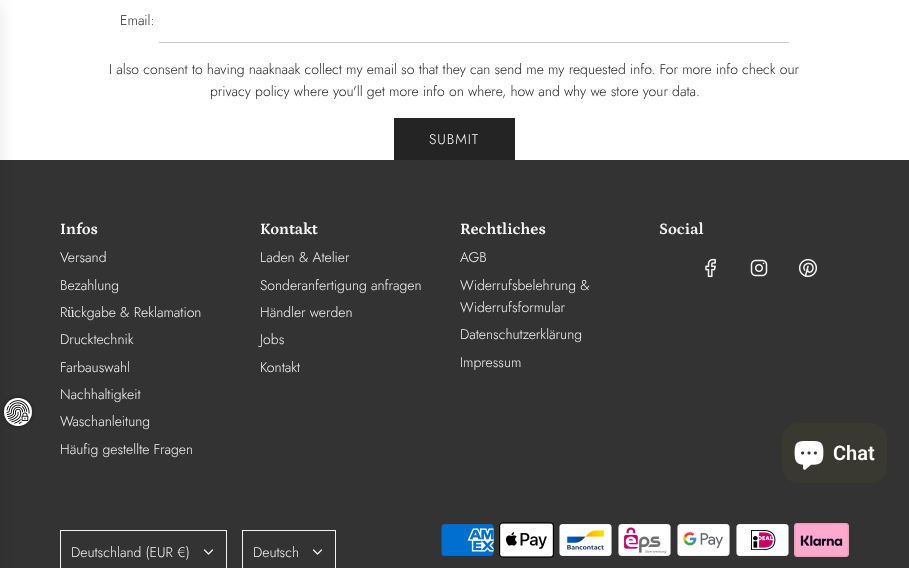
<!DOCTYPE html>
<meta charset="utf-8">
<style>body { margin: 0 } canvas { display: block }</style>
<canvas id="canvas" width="909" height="568"></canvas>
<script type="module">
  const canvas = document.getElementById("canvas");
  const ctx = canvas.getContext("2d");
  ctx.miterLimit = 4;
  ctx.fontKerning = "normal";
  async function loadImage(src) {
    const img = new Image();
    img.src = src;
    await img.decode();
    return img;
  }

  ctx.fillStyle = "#ffffff";
  ctx.fillRect(0, 0, 909, 568);
  ctx.fillStyle = "#333333";
  ctx.fillRect(0, 160, 909, 408);
  ctx.fillStyle = "rgba(0, 0, 0, 0.1)";
  ctx.filter = "blur(7.5px)";
  ctx.beginPath();
  ctx.rect(-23, 5, 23, 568);
  ctx.fill();
  ctx.filter = "none";
  ctx.font = "300 14px Jost";
  ctx.fillStyle = "#242424";
  ctx.fillText("Email:", 120, 25);
  ctx.fillStyle = "#c8c8c8";
  ctx.fillRect(159, 42, 630, 1);
  ctx.fillStyle = "#242424";
  ctx.fillText("I also consent to having naaknaak collect my email so that they can send me my requested info. For more info check our", 109, 74);
  ctx.fillText("privacy policy where you'll get more info on where, how and why we store your data.", 210, 96);
  ctx.fillRect(394, 118, 121, 42);
  ctx.letterSpacing = "1px";
  ctx.fillStyle = "#ffffff";
  ctx.fillText("SUBMIT", 429, 144);
  ctx.fillStyle = "rgba(0, 0, 0, 0.4)";
  ctx.filter = "blur(2px)";
  ctx.beginPath();
  ctx.roundRect(4, 398, 28, 28, 14);
  ctx.fill();
  ctx.filter = "none";
  ctx.fillStyle = "#ffffff";
  ctx.beginPath();
  ctx.arc(18, 412, 14, 0, Math.PI * 2);
  ctx.fill();
  ctx.drawImage(await loadImage("img1.png"), 6, 400, 24, 24);
  ctx.letterSpacing = "0px";
  ctx.font = "bold 16px Petrona";
  ctx.fillStyle = "#f3f3f3";
  ctx.fillText("Infos", 60, 234);
  ctx.font = "300 14px Jost";
  ctx.fillText("Versand", 60, 262);
  ctx.fillText("Bezahlung", 60, 290);
  ctx.fillText("Rückgabe & Reklamation", 60, 317);
  ctx.fillText("Drucktechnik", 60, 344);
  ctx.fillText("Farbauswahl", 60, 372);
  ctx.fillText("Nachhaltigkeit", 60, 399);
  ctx.fillText("Waschanleitung", 60, 426);
  ctx.fillText("Häufig gestellte Fragen", 60, 454);
  ctx.font = "bold 16px Petrona";
  ctx.fillText("Kontakt", 260, 234);
  ctx.font = "300 14px Jost";
  ctx.fillText("Laden & Atelier", 260, 262);
  ctx.fillText("Sonderanfertigung anfragen", 260, 290);
  ctx.fillText("Händler werden", 260, 317);
  ctx.fillText("Jobs", 260, 344);
  ctx.fillText("Kontakt", 260, 372);
  ctx.font = "bold 16px Petrona";
  ctx.fillText("Rechtliches", 460, 234);
  ctx.font = "300 14px Jost";
  ctx.fillText("AGB", 460, 262);
  ctx.fillText("Widerrufsbelehrung &", 460, 290);
  ctx.fillText("Widerrufsformular", 460, 312);
  ctx.fillText("Datenschutzerklärung", 460, 339);
  ctx.fillText("Impressum", 460, 367);
  ctx.font = "bold 16px Petrona";
  ctx.fillText("Social", 659, 234);
  ctx.drawImage(await loadImage("img2.png"), 705, 258, 11, 20);
  ctx.drawImage(await loadImage("img3.png"), 750, 259, 18, 18);
  ctx.drawImage(await loadImage("img4.png"), 798, 258, 20, 20);
  ctx.strokeStyle = "#f3f3f3";
  ctx.strokeRect(60.5, 530.5, 166, 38);
  ctx.font = "300 14px Jost";
  ctx.fillText("Deutschland (EUR €)", 71, 557);
  ctx.beginPath();
  ctx.moveTo(204.5, 550);
  ctx.lineTo(208.5, 554);
  ctx.lineTo(212.5, 550);
  ctx.lineWidth = 1.2;
  ctx.lineCap = "round";
  ctx.lineJoin = "round";
  ctx.stroke();
  ctx.lineWidth = 1;
  ctx.lineJoin = "miter";
  ctx.strokeRect(242.5, 530.5, 93, 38);
  ctx.fillText("Deutsch", 253, 557);
  ctx.beginPath();
  ctx.moveTo(313.5, 550);
  ctx.lineTo(317.5, 554);
  ctx.lineTo(321.5, 550);
  ctx.lineWidth = 1.2;
  ctx.lineJoin = "round";
  ctx.stroke();
  ctx.drawImage(await loadImage("img5.png"), 441, 524, 53, 32);
  ctx.drawImage(await loadImage("img6.png"), 499, 522, 55, 36);
  ctx.drawImage(await loadImage("img7.png"), 559, 524, 53, 32);
  ctx.drawImage(await loadImage("img8.png"), 618, 524, 53, 32);
  ctx.drawImage(await loadImage("img9.png"), 677, 524, 53, 32);
  ctx.drawImage(await loadImage("img10.png"), 736, 524, 53, 32);
  ctx.drawImage(await loadImage("img11.png"), 794, 523, 55, 34);
  ctx.fillStyle = "#393932";
  ctx.beginPath();
  ctx.roundRect(782, 423, 105, 60, 16);
  ctx.fill();
  ctx.drawImage(await loadImage("img12.png"), 794, 441, 30, 29);
  ctx.font = "600 20px Roboto";
  ctx.fillStyle = "#ffffff";
  ctx.fillText("Chat", 833, 460);
</script>
